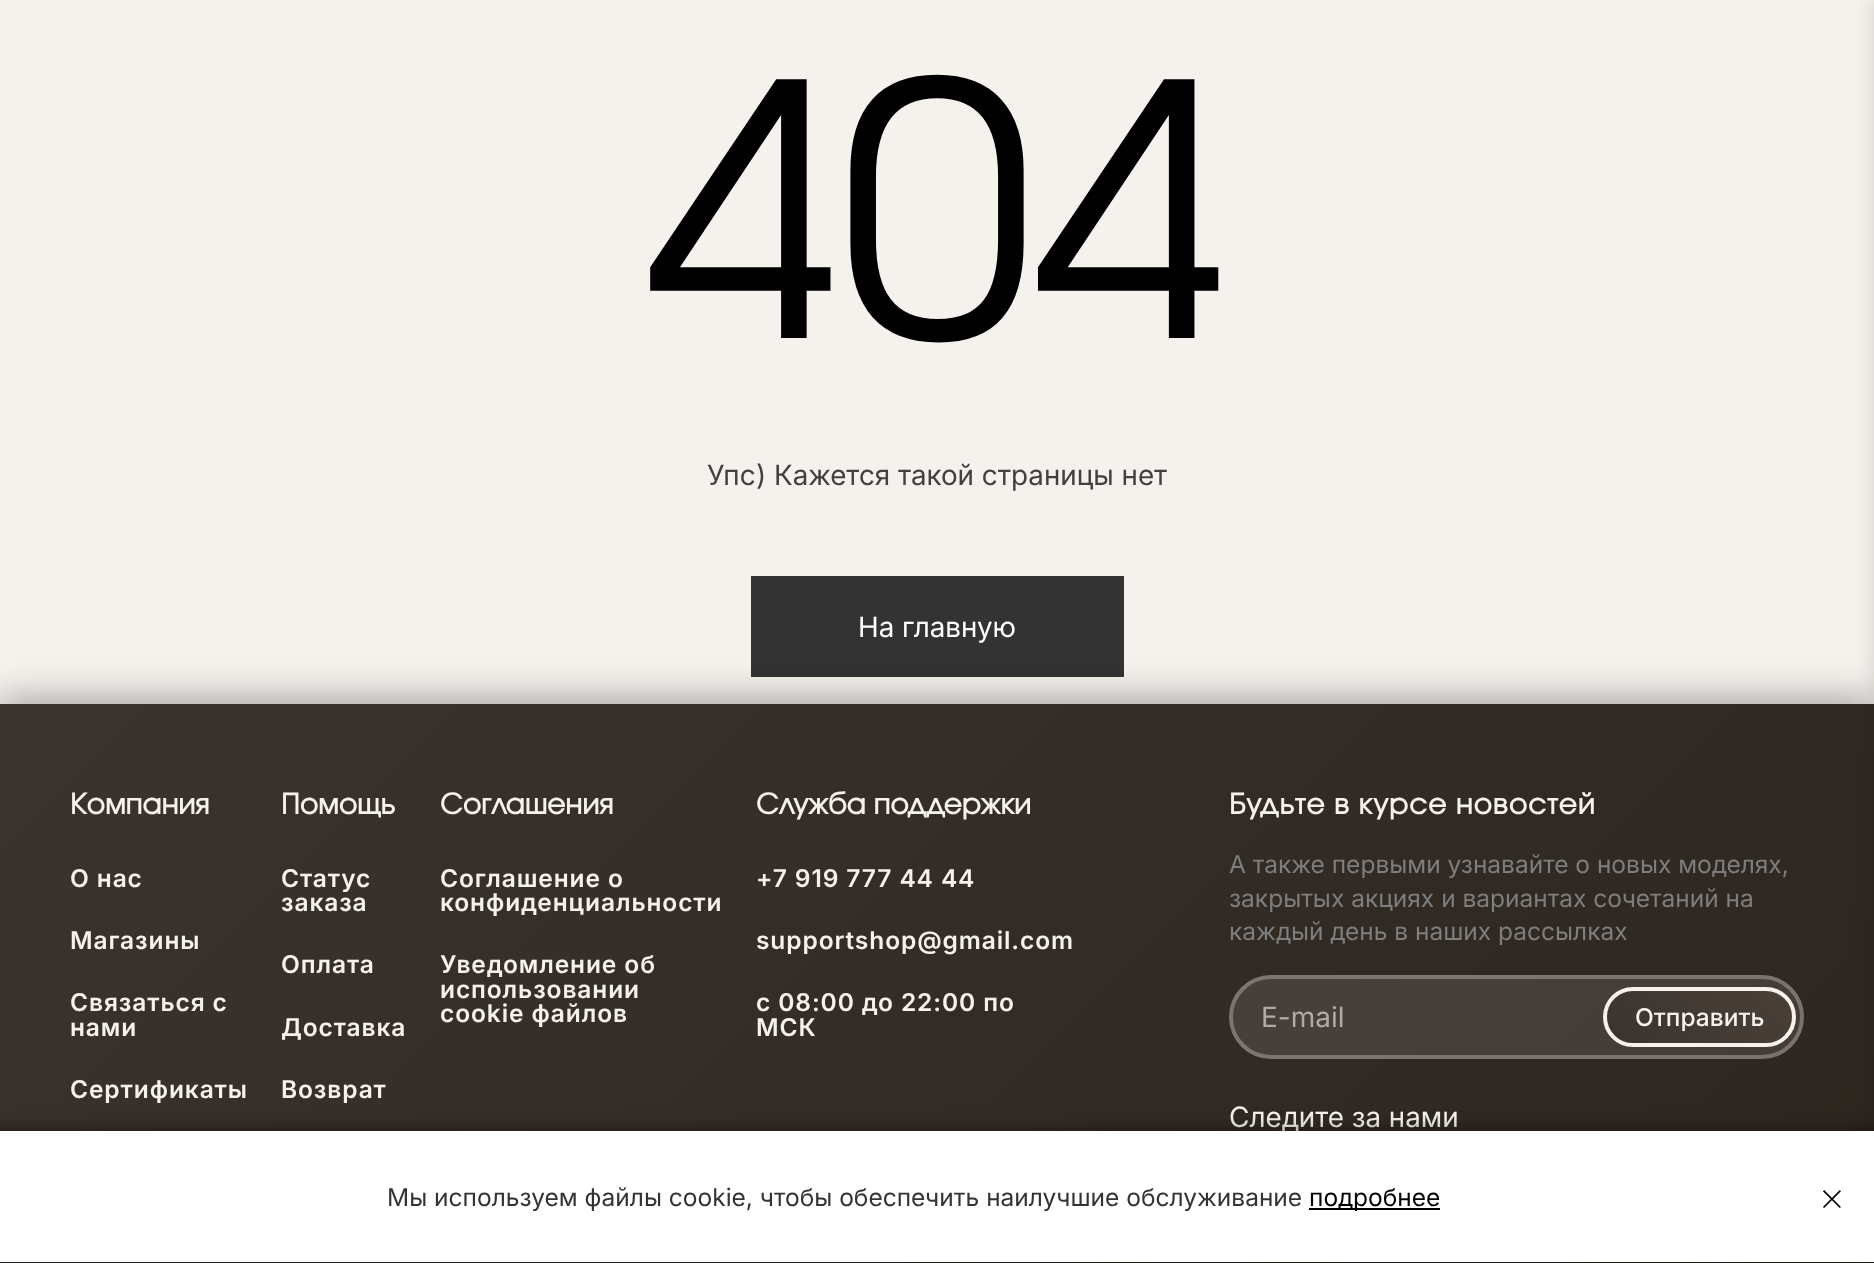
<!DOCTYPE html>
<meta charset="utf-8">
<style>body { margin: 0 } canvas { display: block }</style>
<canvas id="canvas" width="1874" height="1263"></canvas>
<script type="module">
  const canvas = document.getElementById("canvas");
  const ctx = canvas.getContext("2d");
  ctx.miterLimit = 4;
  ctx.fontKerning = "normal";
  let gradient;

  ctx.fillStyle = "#f5f1ed";
  ctx.fillRect(0, 0, 1874, 1263);
  ctx.font = "350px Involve";
  ctx.fillStyle = "#000000";
  ctx.fillText("404", 646, 338);
  ctx.font = "28px Inter";
  ctx.fillStyle = "#414141";
  ctx.fillText("Упс", 707, 485);
  ctx.font = "28px 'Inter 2'";
  ctx.fillText(")", 756, 485);
  ctx.font = "28px Inter";
  ctx.fillText("Кажется такой страницы нет", 774, 485);
  ctx.fillStyle = "#333333";
  ctx.fillRect(751, 576, 373, 101);
  ctx.fillStyle = "#ffffff";
  ctx.fillText("На главную", 858, 637);
  ctx.fillStyle = "rgba(0, 0, 0, 0.3)";
  ctx.filter = "blur(17.5px)";
  ctx.beginPath();
  ctx.rect(0, 697, 1874, 560);
  ctx.fill();
  ctx.filter = "none";
  gradient = ctx.createLinearGradient(329, 375, 1546, 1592);
  gradient.addColorStop(0, "#3a332e");
  gradient.addColorStop(1, "#2d261f");
  ctx.fillStyle = gradient;
  ctx.fillRect(0, 704, 1874, 559);
  ctx.fillStyle = "rgba(0, 0, 0, 0.1)";
  ctx.filter = "blur(9px)";
  ctx.beginPath();
  ctx.rect(1871, 0, 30, 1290);
  ctx.fill();
  ctx.filter = "none";
  ctx.font = "bold 28px Involve";
  ctx.fillStyle = "#f5f1ed";
  ctx.fillText("Компания", 70, 814);
  ctx.letterSpacing = "0.9px";
  ctx.font = "600 24.5px Inter";
  ctx.fillText("О нас", 70, 887);
  ctx.fillText("Магазины", 70, 949);
  ctx.fillText("Связаться с", 70, 1011);
  ctx.fillText("нами", 70, 1036);
  ctx.fillText("Сертификаты", 70, 1098);
  ctx.letterSpacing = "0px";
  ctx.font = "bold 28px Involve";
  ctx.fillText("Помощь", 281, 814);
  ctx.letterSpacing = "0.9px";
  ctx.font = "600 24.5px Inter";
  ctx.fillText("Статус", 281, 887);
  ctx.fillText("заказа", 281, 911);
  ctx.fillText("Оплата", 281, 973);
  ctx.fillText("Доставка", 281, 1036);
  ctx.fillText("Возврат", 281, 1098);
  ctx.letterSpacing = "0px";
  ctx.font = "bold 28px Involve";
  ctx.fillText("Соглашения", 440, 814);
  ctx.letterSpacing = "0.9px";
  ctx.font = "600 24.5px Inter";
  ctx.fillText("Соглашение о", 440, 887);
  ctx.fillText("конфиденциальности", 440, 911);
  ctx.fillText("Уведомление об", 440, 973);
  ctx.fillText("использовании", 440, 998);
  ctx.fillText("cookie файлов", 440, 1022);
  ctx.letterSpacing = "0px";
  ctx.font = "bold 28px Involve";
  ctx.fillText("Служба поддержки", 756, 814);
  ctx.letterSpacing = "0.9px";
  ctx.font = "600 24.5px Inter";
  ctx.fillText("+7 919 777 44 44", 756, 887);
  ctx.fillText("supportshop@gmail.com", 756, 949);
  ctx.fillText("с 08:00 до 22:00 по", 756, 1011);
  ctx.fillText("МСК", 756, 1036);
  ctx.font = "bold 28px Involve";
  ctx.fillText("Будьте в курсе новостей", 1229, 814);
  ctx.letterSpacing = "0px";
  ctx.font = "24.5px 'Inter 2'";
  ctx.fillStyle = "#7e7e7e";
  ctx.fillText("А также первыми узнавайте о новых моделях,", 1229, 873);
  ctx.fillText("закрытых акциях и вариантах сочетаний на", 1229, 907);
  ctx.fillText("каждый день в наших рассылках", 1229, 940);
  ctx.fillStyle = "rgba(255, 255, 255, 0.1)";
  ctx.beginPath();
  ctx.roundRect(1229, 975, 575, 84, 42);
  ctx.fill();
  ctx.beginPath();
  ctx.roundRect(1231, 977, 571, 80, 40);
  ctx.strokeStyle = "rgba(245, 241, 237, 0.3)";
  ctx.lineWidth = 4;
  ctx.stroke();
  ctx.font = "28px 'Inter 2'";
  ctx.fillStyle = "#afaaa5";
  ctx.fillText("E-mail", 1261, 1027);
  ctx.save();
  ctx.beginPath();
  ctx.roundRect(1603, 987, 193, 60, 30);
  ctx.clip();
  gradient = ctx.createLinearGradient(1640, 1076, 1759, 957);
  gradient.addColorStop(0, "#3a332e");
  gradient.addColorStop(1, "#4a4038");
  ctx.fillStyle = gradient;
  ctx.fillRect(1607, 991, 185, 52);
  ctx.restore();
  ctx.beginPath();
  ctx.roundRect(1605, 989, 189, 56, 28);
  ctx.strokeStyle = "#f5f1ed";
  ctx.stroke();
  ctx.font = "500 24.5px Inter";
  ctx.fillStyle = "#f5f1ed";
  ctx.fillText("Отправить", 1635, 1026);
  ctx.font = "28px Inter";
  ctx.fillText("Следите за нами", 1229, 1127);
  ctx.fillStyle = "rgba(0, 0, 0, 0.5)";
  ctx.filter = "blur(9px)";
  ctx.beginPath();
  ctx.rect(-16, 1131, 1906, 131);
  ctx.fill();
  ctx.filter = "none";
  ctx.fillStyle = "#ffffff";
  ctx.fillRect(0, 1131, 1874, 131);
  ctx.font = "24.5px 'Inter 2'";
  ctx.fillStyle = "#333333";
  ctx.fillText("Мы используем файлы cookie, чтобы обеспечить наилучшие обслуживание", 387, 1206);
  ctx.fillStyle = "#000000";
  ctx.fillRect(1309, 1208, 131, 2);
  ctx.fillText("подробнее", 1309, 1206);
  ctx.font = "200 42px Inter";
  ctx.fillText("×", 1819, 1211);
</script>
